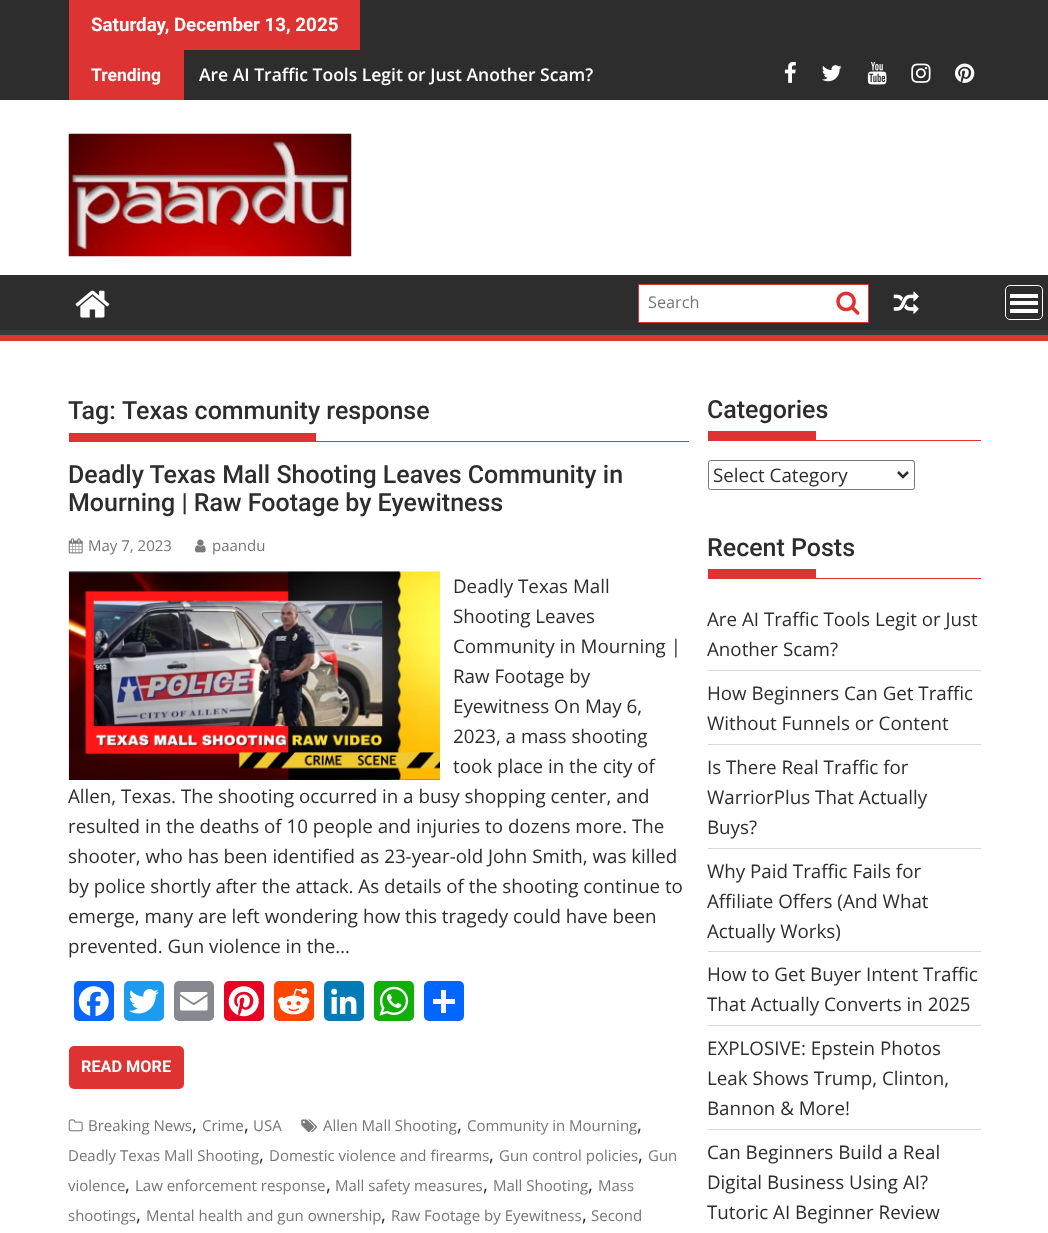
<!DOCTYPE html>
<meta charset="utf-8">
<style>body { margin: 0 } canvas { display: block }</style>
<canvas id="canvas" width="1048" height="1233"></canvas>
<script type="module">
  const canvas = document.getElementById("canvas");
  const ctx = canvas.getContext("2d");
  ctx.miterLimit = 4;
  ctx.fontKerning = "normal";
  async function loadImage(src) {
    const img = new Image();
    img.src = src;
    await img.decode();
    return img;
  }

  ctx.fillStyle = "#ffffff";
  ctx.fillRect(0, 0, 1048, 1233);
  ctx.fillStyle = "#2d2d2d";
  ctx.fillRect(0, 0, 1048, 100);
  ctx.fillStyle = "#dd3333";
  ctx.fillRect(69, 0, 291, 50);
  ctx.font = "bold 18.75px Roboto";
  ctx.fillStyle = "#ffffff";
  ctx.fillText("Saturday, December 13, 2025", 91, 31);
  ctx.fillStyle = "#dd3333";
  ctx.fillRect(69, 50, 115, 50);
  ctx.font = "bold 17.5px Roboto";
  ctx.fillStyle = "#ffffff";
  ctx.fillText("Trending", 91, 81);
  ctx.font = "600 17.5px Open Sans";
  ctx.fillText("Are AI Traffic Tools Legit or Just Another Scam?", 199, 81);
  ctx.drawImage(await loadImage("img1.png"), 784, 62, 12, 21);
  ctx.drawImage(await loadImage("img2.png"), 822, 65, 20, 17);
  ctx.drawImage(await loadImage("img3.png"), 867, 61, 20, 24);
  ctx.drawImage(await loadImage("img4.png"), 911, 63, 20, 20);
  ctx.drawImage(await loadImage("img5.png"), 955, 63, 20, 20);
  ctx.drawImage(await loadImage("img6.png"), 68, 133, 284, 124);
  ctx.fillStyle = "#2d2d2d";
  ctx.fillRect(0, 275, 1048, 55);
  ctx.save();
  ctx.beginPath();
  ctx.rect(0, 275, 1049, 60);
  ctx.clip();
  ctx.fillStyle = "#393939";
  ctx.beginPath();
  ctx.moveTo(-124, 151);
  ctx.lineTo(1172, 151);
  ctx.lineTo(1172, 459);
  ctx.lineTo(-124, 459);
  ctx.closePath();
  ctx.moveTo(-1, 268);
  ctx.lineTo(1048, 268);
  ctx.bezierCurveTo(1048, 268, 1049, 268, 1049, 269);
  ctx.lineTo(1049, 329);
  ctx.bezierCurveTo(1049, 329, 1048, 330, 1048, 330);
  ctx.lineTo(-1, 330);
  ctx.bezierCurveTo(-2, 330, -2, 329, -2, 329);
  ctx.lineTo(-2, 269);
  ctx.bezierCurveTo(-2, 268, -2, 268, -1, 268);
  ctx.closePath();
  ctx.fill("evenodd");
  ctx.restore();
  ctx.fillStyle = "#dd3333";
  ctx.fillRect(0, 335, 1048, 6);
  ctx.drawImage(await loadImage("img7.png"), 75, 290, 35, 28);
  ctx.fillStyle = "#ffffff";
  ctx.beginPath();
  ctx.rect(638.5, 284.5, 230, 38);
  ctx.fill();
  ctx.strokeStyle = "#dd3333";
  ctx.stroke();
  ctx.font = "16.25px Open Sans";
  ctx.fillStyle = "#757575";
  ctx.fillText("Search", 648, 308);
  ctx.drawImage(await loadImage("img8.png"), 836, 291, 24, 24);
  ctx.drawImage(await loadImage("img9.png"), 893, 291, 26, 23);
  ctx.beginPath();
  ctx.roundRect(1005.5, 285.5, 37, 34, 4.5);
  ctx.strokeStyle = "#ffffff";
  ctx.stroke();
  ctx.fillStyle = "#ffffff";
  ctx.fillRect(1010, 309, 28, 4);
  ctx.fillRect(1010, 301, 28, 4);
  ctx.fillRect(1010, 294, 28, 4);
  ctx.fillStyle = "#dd3333";
  ctx.fillRect(69, 441, 620, 1);
  ctx.font = "500 25px Roboto";
  ctx.fillStyle = "#2d2d2d";
  ctx.fillText("Tag:", 68, 419);
  ctx.fillText("Texas community response", 122, 419);
  ctx.fillStyle = "#dd3333";
  ctx.fillRect(69, 433, 247, 8);
  ctx.fillStyle = "#2d2d2d";
  ctx.fillText("Deadly Texas Mall Shooting Leaves Community in", 68, 483);
  ctx.fillText("Mourning | Raw Footage by Eyewitness", 68, 511);
  ctx.drawImage(await loadImage("img10.png"), 68, 538, 15, 16);
  ctx.font = "15px Open Sans";
  ctx.fillStyle = "#757575";
  ctx.fillText("May 7, 2023", 88, 551);
  ctx.drawImage(await loadImage("img11.png"), 195, 539, 11, 14);
  ctx.fillText("paandu", 212, 551);
  ctx.drawImage(await loadImage("img12.png"), 68, 571, 372, 209);
  ctx.font = "18.75px Open Sans";
  ctx.fillStyle = "#2d2d2d";
  ctx.fillText("Deadly Texas Mall", 453, 593);
  ctx.fillText("Shooting Leaves", 453, 623);
  ctx.fillText("Community in Mourning |", 453, 653);
  ctx.fillText("Raw Footage by", 453, 683);
  ctx.fillText("Eyewitness On May 6,", 453, 713);
  ctx.fillText("2023, a mass shooting", 453, 743);
  ctx.fillText("took place in the city of", 453, 773);
  ctx.fillText("Allen, Texas. The shooting occurred in a busy shopping center, and", 68, 803);
  ctx.fillText("resulted in the deaths of 10 people and injuries to dozens more. The", 68, 833);
  ctx.fillText("shooter, who has been identified as 23-year-old John Smith, was killed", 68, 863);
  ctx.fillText("by police shortly after the attack. As details of the shooting continue to", 68, 893);
  ctx.fillText("emerge, many are left wondering how this tragedy could have been", 68, 923);
  ctx.fillText("prevented. Gun violence in the…", 68, 953);
  ctx.fillStyle = "#0866ff";
  ctx.beginPath();
  ctx.roundRect(74, 981, 40, 40, 5);
  ctx.fill();
  ctx.drawImage(await loadImage("img13.png"), 78, 986, 31, 31);
  ctx.fillStyle = "#1d9bf0";
  ctx.beginPath();
  ctx.roundRect(124, 981, 40, 40, 5);
  ctx.fill();
  ctx.drawImage(await loadImage("img14.png"), 129, 989, 30, 25);
  ctx.fillStyle = "#888990";
  ctx.beginPath();
  ctx.roundRect(174, 981, 40, 40, 5);
  ctx.fill();
  ctx.drawImage(await loadImage("img15.png"), 180, 992, 28, 19);
  ctx.fillStyle = "#e60023";
  ctx.beginPath();
  ctx.roundRect(224, 981, 40, 40, 5);
  ctx.fill();
  ctx.drawImage(await loadImage("img16.png"), 228, 986, 31, 31);
  ctx.fillStyle = "#ff4500";
  ctx.beginPath();
  ctx.roundRect(274, 981, 40, 40, 5);
  ctx.fill();
  ctx.drawImage(await loadImage("img17.png"), 278, 988, 32, 27);
  ctx.fillStyle = "#007bb5";
  ctx.beginPath();
  ctx.roundRect(324, 981, 40, 40, 5);
  ctx.fill();
  ctx.drawImage(await loadImage("img18.png"), 331, 988, 26, 26);
  ctx.fillStyle = "#12af0a";
  ctx.beginPath();
  ctx.roundRect(374, 981, 40, 40, 5);
  ctx.fill();
  ctx.drawImage(await loadImage("img19.png"), 379, 986, 30, 30);
  ctx.fillStyle = "#0166ff";
  ctx.beginPath();
  ctx.roundRect(424, 981, 40, 40, 5);
  ctx.fill();
  ctx.fillStyle = "#ffffff";
  ctx.fillRect(441, 990, 5, 23);
  ctx.fillRect(433, 999, 22, 5);
  ctx.fillStyle = "#dd3333";
  ctx.beginPath();
  ctx.roundRect(69, 1046, 115, 43, 5);
  ctx.fill();
  ctx.font = "bold 16.25px Roboto";
  ctx.fillStyle = "#ffffff";
  ctx.fillText("READ MORE", 81, 1072);
  ctx.drawImage(await loadImage("img20.png"), 301, 1119, 17, 14);
  ctx.font = "15px Open Sans";
  ctx.fillStyle = "#757575";
  ctx.fillText("Allen Mall Shooting", 323, 1131);
  ctx.font = "18.75px Open Sans";
  ctx.fillStyle = "#2d2d2d";
  ctx.fillText(",", 457, 1131);
  ctx.font = "15px Open Sans";
  ctx.fillStyle = "#757575";
  ctx.fillText("Community in Mourning", 467, 1131);
  ctx.font = "18.75px Open Sans";
  ctx.fillStyle = "#2d2d2d";
  ctx.fillText(",", 637, 1131);
  ctx.font = "15px Open Sans";
  ctx.fillStyle = "#757575";
  ctx.fillText("Deadly Texas Mall Shooting", 68, 1161);
  ctx.font = "18.75px Open Sans";
  ctx.fillStyle = "#2d2d2d";
  ctx.fillText(",", 259, 1161);
  ctx.font = "15px Open Sans";
  ctx.fillStyle = "#757575";
  ctx.fillText("Domestic violence and firearms", 269, 1161);
  ctx.font = "18.75px Open Sans";
  ctx.fillStyle = "#2d2d2d";
  ctx.fillText(",", 489, 1161);
  ctx.font = "15px Open Sans";
  ctx.fillStyle = "#757575";
  ctx.fillText("Gun control policies", 499, 1161);
  ctx.font = "18.75px Open Sans";
  ctx.fillStyle = "#2d2d2d";
  ctx.fillText(",", 638, 1161);
  ctx.font = "15px Open Sans";
  ctx.fillStyle = "#757575";
  ctx.fillText("Gun", 648, 1161);
  ctx.fillText("violence", 68, 1191);
  ctx.font = "18.75px Open Sans";
  ctx.fillStyle = "#2d2d2d";
  ctx.fillText(",", 125, 1191);
  ctx.font = "15px Open Sans";
  ctx.fillStyle = "#757575";
  ctx.fillText("Law enforcement response", 135, 1191);
  ctx.font = "18.75px Open Sans";
  ctx.fillStyle = "#2d2d2d";
  ctx.fillText(",", 326, 1191);
  ctx.font = "15px Open Sans";
  ctx.fillStyle = "#757575";
  ctx.fillText("Mall safety measures", 335, 1191);
  ctx.font = "18.75px Open Sans";
  ctx.fillStyle = "#2d2d2d";
  ctx.fillText(",", 483, 1191);
  ctx.font = "15px Open Sans";
  ctx.fillStyle = "#757575";
  ctx.fillText("Mall Shooting", 493, 1191);
  ctx.font = "18.75px Open Sans";
  ctx.fillStyle = "#2d2d2d";
  ctx.fillText(",", 588, 1191);
  ctx.font = "15px Open Sans";
  ctx.fillStyle = "#757575";
  ctx.fillText("Mass", 598, 1191);
  ctx.fillText("shootings", 68, 1221);
  ctx.font = "18.75px Open Sans";
  ctx.fillStyle = "#2d2d2d";
  ctx.fillText(",", 136, 1221);
  ctx.font = "15px Open Sans";
  ctx.fillStyle = "#757575";
  ctx.fillText("Mental health and gun ownership", 146, 1221);
  ctx.font = "18.75px Open Sans";
  ctx.fillStyle = "#2d2d2d";
  ctx.fillText(",", 381, 1221);
  ctx.font = "15px Open Sans";
  ctx.fillStyle = "#757575";
  ctx.fillText("Raw Footage by Eyewitness", 391, 1221);
  ctx.font = "18.75px Open Sans";
  ctx.fillStyle = "#2d2d2d";
  ctx.fillText(",", 582, 1221);
  ctx.font = "15px Open Sans";
  ctx.fillStyle = "#757575";
  ctx.fillText("Second", 591, 1221);
  ctx.drawImage(await loadImage("img21.png"), 68, 1119, 15, 13);
  ctx.fillText("Breaking News", 88, 1131);
  ctx.font = "18.75px Open Sans";
  ctx.fillStyle = "#2d2d2d";
  ctx.fillText(",", 192, 1131);
  ctx.font = "15px Open Sans";
  ctx.fillStyle = "#757575";
  ctx.fillText("Crime", 202, 1131);
  ctx.font = "18.75px Open Sans";
  ctx.fillStyle = "#2d2d2d";
  ctx.fillText(",", 244, 1131);
  ctx.font = "15px Open Sans";
  ctx.fillStyle = "#757575";
  ctx.fillText("USA", 253, 1131);
  ctx.fillStyle = "#dd3333";
  ctx.fillRect(708, 440, 273, 1);
  ctx.font = "500 25px Roboto";
  ctx.fillStyle = "#2d2d2d";
  ctx.fillText("Categories", 707, 418);
  ctx.fillStyle = "#dd3333";
  ctx.fillRect(708, 431, 108, 9);
  ctx.beginPath();
  ctx.roundRect(708.5, 460.5, 206, 29, 2);
  ctx.strokeStyle = "#767676";
  ctx.stroke();
  ctx.beginPath();
  ctx.moveTo(898, 472);
  ctx.lineTo(903, 477);
  ctx.lineTo(908, 472);
  ctx.strokeStyle = "#2d2d2d";
  ctx.lineWidth = 2.5;
  ctx.stroke();
  ctx.font = "18.75px Open Sans";
  ctx.fillStyle = "#2d2d2d";
  ctx.fillText("Select Category", 713, 482);
  ctx.fillStyle = "#dd3333";
  ctx.fillRect(708, 578, 273, 1);
  ctx.font = "500 25px Roboto";
  ctx.fillStyle = "#2d2d2d";
  ctx.fillText("Recent Posts", 707, 556);
  ctx.fillStyle = "#dd3333";
  ctx.fillRect(708, 569, 108, 9);
  ctx.fillStyle = "#d7d7d7";
  ctx.fillRect(708, 670, 273, 1);
  ctx.font = "18.75px Open Sans";
  ctx.fillStyle = "#2d2d2d";
  ctx.fillText("Are AI Traffic Tools Legit or Just", 707, 626);
  ctx.fillText("Another Scam?", 707, 656);
  ctx.fillStyle = "#d7d7d7";
  ctx.fillRect(708, 744, 273, 1);
  ctx.fillStyle = "#2d2d2d";
  ctx.fillText("How Beginners Can Get Traffic", 707, 700);
  ctx.fillText("Without Funnels or Content", 707, 730);
  ctx.fillStyle = "#d7d7d7";
  ctx.fillRect(708, 848, 273, 1);
  ctx.fillStyle = "#2d2d2d";
  ctx.fillText("Is There Real Traffic for", 707, 774);
  ctx.fillText("WarriorPlus That Actually", 707, 804);
  ctx.fillText("Buys?", 707, 834);
  ctx.fillStyle = "#d7d7d7";
  ctx.fillRect(708, 951, 273, 1);
  ctx.fillStyle = "#2d2d2d";
  ctx.fillText("Why Paid Traffic Fails for", 707, 878);
  ctx.fillText("Affiliate Offers (And What", 707, 908);
  ctx.fillText("Actually Works)", 707, 938);
  ctx.fillStyle = "#d7d7d7";
  ctx.fillRect(708, 1025, 273, 1);
  ctx.fillStyle = "#2d2d2d";
  ctx.fillText("How to Get Buyer Intent Traffic", 707, 981);
  ctx.fillText("That Actually Converts in 2025", 707, 1011);
  ctx.fillStyle = "#d7d7d7";
  ctx.fillRect(708, 1129, 273, 1);
  ctx.fillStyle = "#2d2d2d";
  ctx.fillText("EXPLOSIVE: Epstein Photos", 707, 1055);
  ctx.fillText("Leak Shows Trump, Clinton,", 707, 1085);
  ctx.fillText("Bannon & More!", 707, 1115);
  ctx.fillText("Can Beginners Build a Real", 707, 1159);
  ctx.fillText("Digital Business Using AI?", 707, 1189);
  ctx.fillText("Tutoric AI Beginner Review", 707, 1219);
</script>
